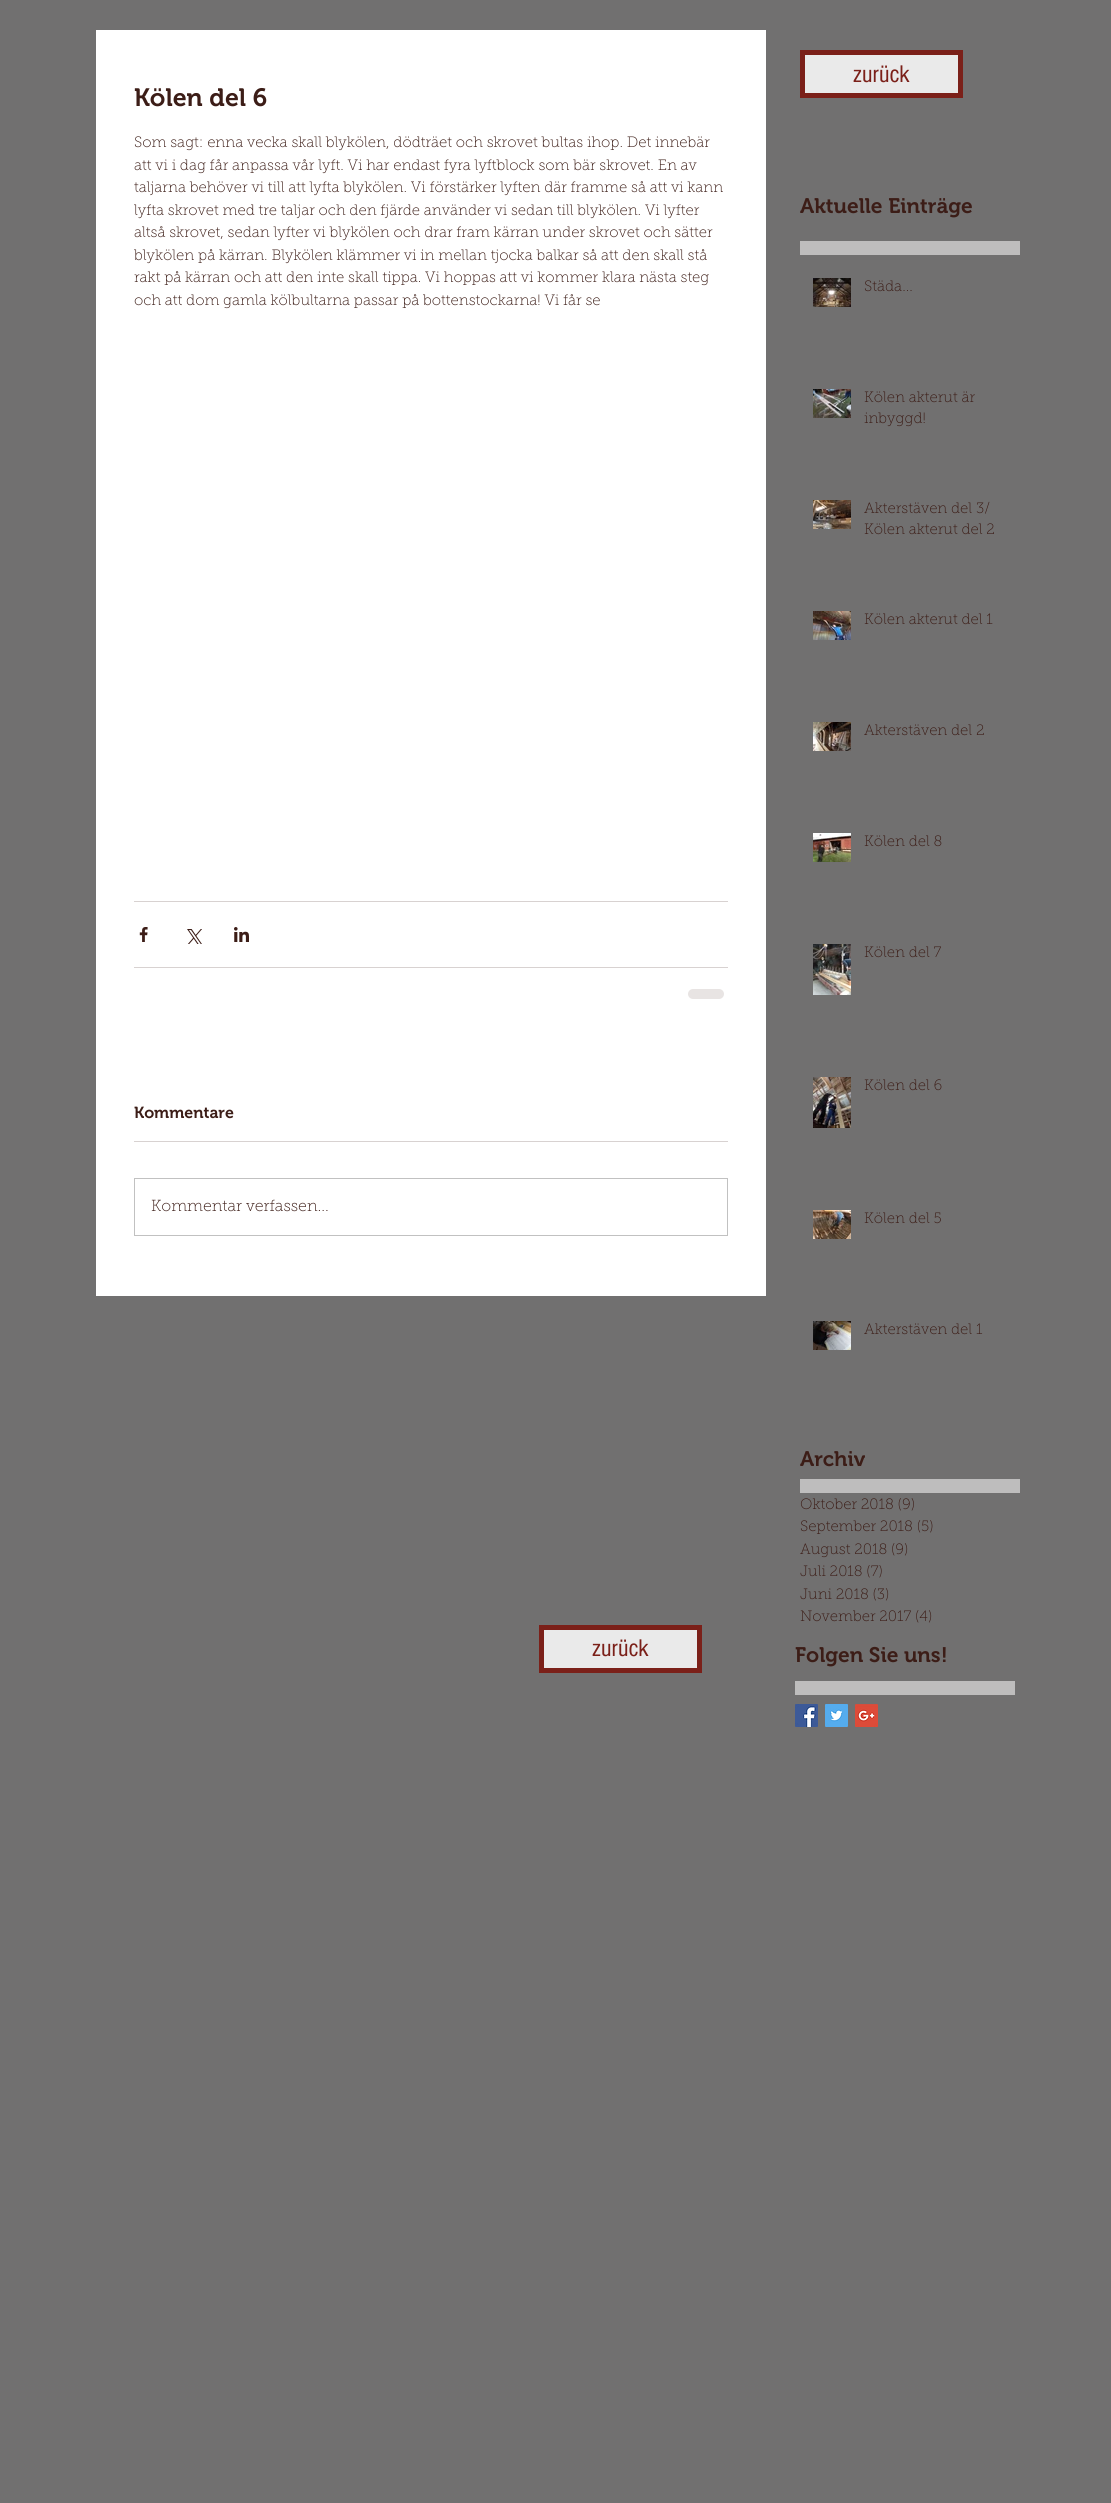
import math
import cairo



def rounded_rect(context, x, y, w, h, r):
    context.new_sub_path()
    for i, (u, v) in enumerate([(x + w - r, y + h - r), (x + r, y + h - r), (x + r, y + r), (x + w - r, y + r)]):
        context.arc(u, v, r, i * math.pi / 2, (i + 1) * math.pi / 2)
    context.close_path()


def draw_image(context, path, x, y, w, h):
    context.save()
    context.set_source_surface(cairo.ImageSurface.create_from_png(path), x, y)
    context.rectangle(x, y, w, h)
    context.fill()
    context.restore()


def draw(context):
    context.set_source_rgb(113 / 255, 112 / 255, 112 / 255)
    context.paint()
    context.set_source_rgb(234 / 255, 234 / 255, 234 / 255)
    context.rectangle(802.5, 52.5, 158, 43)
    context.fill_preserve()
    context.set_source_rgb(123 / 255, 32 / 255, 25 / 255)
    context.set_line_width(5)
    context.stroke()
    context.set_source_rgb(1, 1, 1)
    context.rectangle(96, 30, 670, 1266)
    context.fill()
    context.set_source_rgb(216 / 255, 210 / 255, 209 / 255)
    context.rectangle(134, 901, 594, 1)
    context.fill()
    draw_image(context, "images/1.png", 139, 927, 9, 15)
    draw_image(context, "images/2.png", 187, 929, 15, 15)
    draw_image(context, "images/3.png", 234, 927, 15, 15)
    context.rectangle(134, 967, 594, 1)
    context.fill()
    context.set_source_rgb(232 / 255, 228 / 255, 227 / 255)
    rounded_rect(context, 688, 989, 36, 10, 5)
    context.fill()
    context.set_source_rgb(216 / 255, 210 / 255, 209 / 255)
    context.rectangle(134, 1141, 594, 1)
    context.fill()
    context.rectangle(134.5, 1178.5, 593, 57)
    context.set_source_rgb(193 / 255, 193 / 255, 193 / 255)
    context.set_line_width(1)
    context.stroke()
    context.set_source_rgb(190 / 255, 189 / 255, 189 / 255)
    context.rectangle(800, 241, 220, 14)
    context.fill()
    draw_image(context, "images/4.png", 813, 278, 38, 29)
    draw_image(context, "images/5.png", 813, 389, 38, 29)
    draw_image(context, "images/6.png", 813, 500, 38, 29)
    draw_image(context, "images/7.png", 813, 611, 38, 29)
    draw_image(context, "images/8.png", 813, 722, 38, 29)
    draw_image(context, "images/9.png", 813, 833, 38, 29)
    draw_image(context, "images/10.png", 813, 944, 38, 51)
    draw_image(context, "images/11.png", 813, 1077, 38, 51)
    draw_image(context, "images/12.png", 813, 1210, 38, 29)
    draw_image(context, "images/13.png", 813, 1321, 38, 29)
    context.rectangle(800, 1479, 220, 14)
    context.fill()
    context.set_source_rgb(234 / 255, 234 / 255, 234 / 255)
    context.rectangle(541.5, 1627.5, 158, 43)
    context.fill_preserve()
    context.set_source_rgb(123 / 255, 32 / 255, 25 / 255)
    context.set_line_width(5)
    context.stroke()
    context.set_source_rgb(190 / 255, 189 / 255, 189 / 255)
    context.rectangle(795, 1681, 220, 14)
    context.fill()
    draw_image(context, "images/14.png", 795, 1704, 23, 23)
    draw_image(context, "images/15.png", 825, 1704, 23, 23)
    draw_image(context, "images/16.png", 855, 1704, 23, 23)
    context.select_font_face("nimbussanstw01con")
    context.set_font_size(25)
    context.set_source_rgb(123 / 255, 32 / 255, 25 / 255)
    context.move_to(853, 82)
    context.show_text("zurück")
    context.select_font_face("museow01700 SemiBold")
    context.set_source_rgb(60 / 255, 29 / 255, 23 / 255)
    context.move_to(134, 106)
    context.show_text("Kölen del 6")
    context.select_font_face("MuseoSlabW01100 Thin")
    context.set_font_size(15)
    context.move_to(134, 147)
    context.show_text("Som sagt: enna vecka skall blykölen, dödträet och skrovet bultas ihop. Det innebär")
    context.move_to(134, 170)
    context.show_text("att vi i dag får anpassa vår lyft. Vi har endast fyra lyftblock som bär skrovet. En av")
    context.move_to(134, 192)
    context.show_text("taljarna behöver vi till att lyfta blykölen. Vi förstärker lyften där framme så att vi kann")
    context.move_to(134, 215)
    context.show_text("lyfta skrovet med tre taljar och den fjärde använder vi sedan till blykölen. Vi lyfter")
    context.move_to(134, 237)
    context.show_text("altså skrovet, sedan lyfter vi blykölen och drar fram kärran under skrovet och sätter")
    context.move_to(134, 260)
    context.show_text("blykölen på kärran. Blykölen klämmer vi in mellan tjocka balkar så att den skall stå")
    context.move_to(134, 282)
    context.show_text("rakt på kärran och att den inte skall tippa. Vi hoppas att vi kommer klara nästa steg")
    context.move_to(134, 305)
    context.show_text("och att dom gamla kölbultarna passar på bottenstockarna! Vi får se")
    context.select_font_face("museow01700 SemiBold")
    context.set_font_size(16)
    context.move_to(134, 1118)
    context.show_text("Kommentare")
    context.select_font_face("MuseoSlabW01100 Thin")
    context.move_to(151, 1211)
    context.show_text("Kommentar verfassen...")
    context.select_font_face("museow01700 SemiBold")
    context.set_font_size(21)
    context.move_to(800, 213)
    context.show_text("Aktuelle Einträge")
    context.select_font_face("MuseoSlabW01100 Thin")
    context.set_font_size(15)
    context.move_to(864, 291)
    context.show_text("Städa...")
    context.move_to(864, 402)
    context.show_text("Kölen akterut är")
    context.move_to(864, 423)
    context.show_text("inbyggd!")
    context.move_to(864, 513)
    context.show_text("Akterstäven del 3/")
    context.move_to(864, 534)
    context.show_text("Kölen akterut del 2")
    context.move_to(864, 624)
    context.show_text("Kölen akterut del 1")
    context.move_to(864, 735)
    context.show_text("Akterstäven del 2")
    context.move_to(864, 846)
    context.show_text("Kölen del 8")
    context.move_to(864, 957)
    context.show_text("Kölen del 7")
    context.move_to(864, 1090)
    context.show_text("Kölen del 6")
    context.move_to(864, 1223)
    context.show_text("Kölen del 5")
    context.move_to(864, 1334)
    context.show_text("Akterstäven del 1")
    context.select_font_face("museow01700 SemiBold")
    context.set_font_size(21)
    context.move_to(800, 1466)
    context.show_text("Archiv")
    context.select_font_face("MuseoSlabW01100 Thin")
    context.set_font_size(15)
    context.move_to(800, 1509)
    context.show_text("Oktober 2018 (9)")
    context.move_to(800, 1531)
    context.show_text("September 2018 (5)")
    context.move_to(800, 1554)
    context.show_text("August 2018 (9)")
    context.move_to(800, 1576)
    context.show_text("Juli 2018 (7)")
    context.move_to(800, 1599)
    context.show_text("Juni 2018 (3)")
    context.move_to(800, 1621)
    context.show_text("November 2017 (4)")
    context.select_font_face("nimbussanstw01con")
    context.set_font_size(25)
    context.set_source_rgb(123 / 255, 32 / 255, 25 / 255)
    context.move_to(592, 1656)
    context.show_text("zurück")
    context.select_font_face("museow01700 SemiBold")
    context.set_font_size(21)
    context.set_source_rgb(60 / 255, 29 / 255, 23 / 255)
    context.move_to(795, 1662)
    context.show_text("Folgen Sie uns!")


surface = cairo.ImageSurface(cairo.Format.RGB24, 1111, 2503)
context = cairo.Context(surface)
options = cairo.FontOptions()
options.set_hint_metrics(cairo.HintMetrics.OFF)
options.set_hint_style(cairo.HintStyle.NONE)
context.set_font_options(options)
context.set_miter_limit(4)
draw(context)
surface.write_to_png("out.png")
